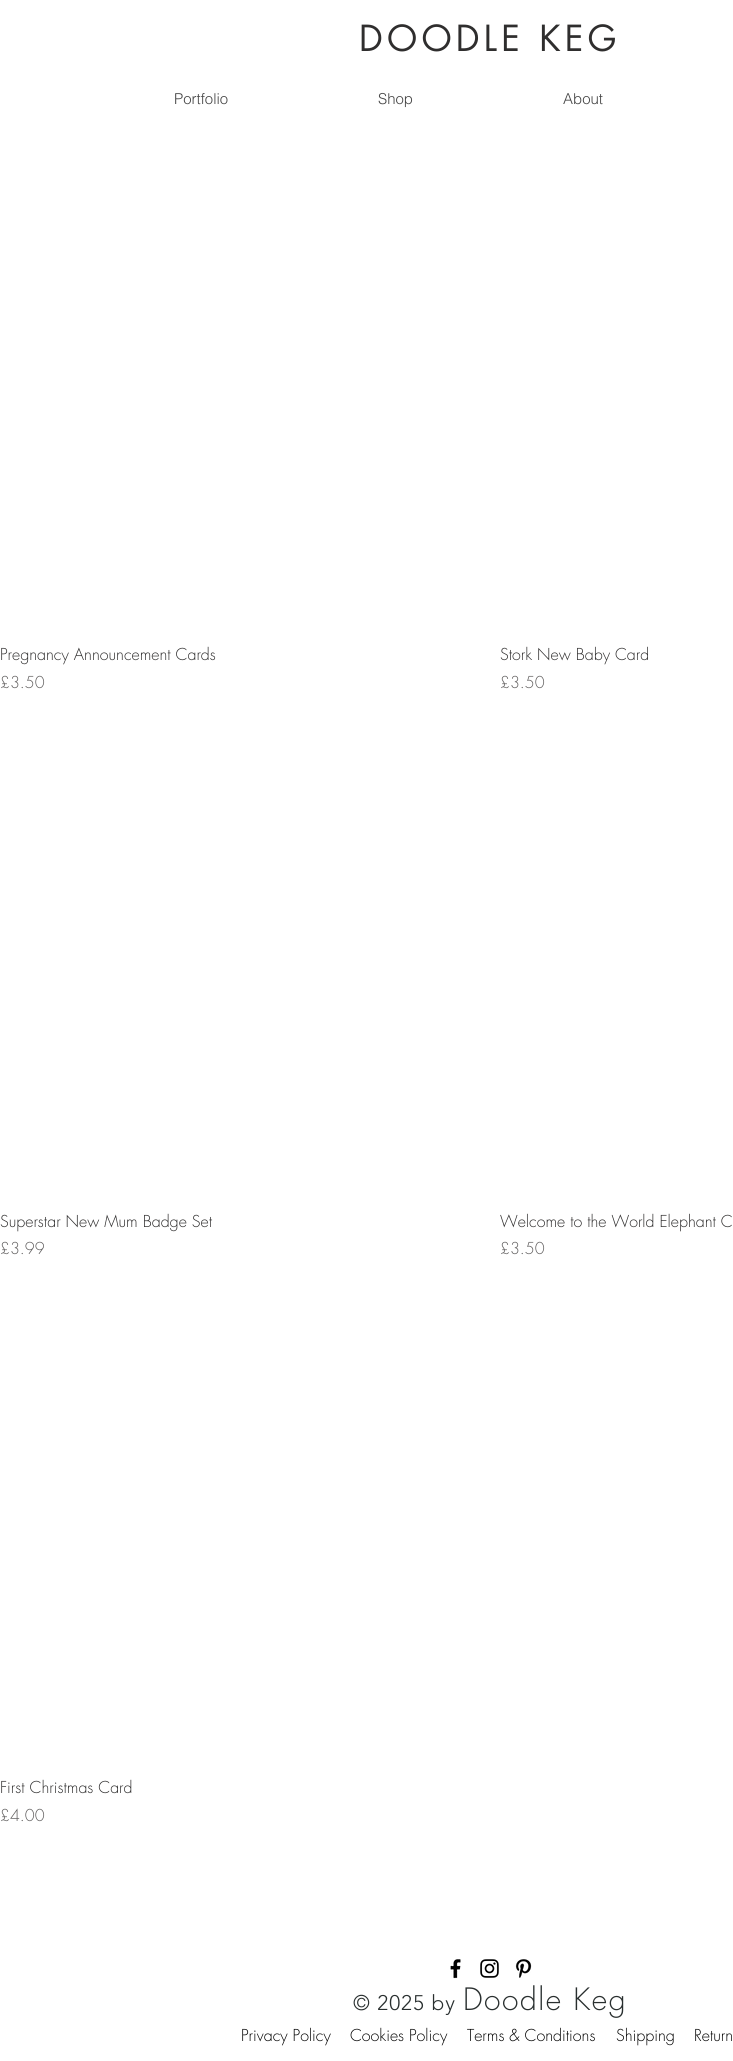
import math
import cairo



def draw_spaced(context, x, y, s, letter, word):
    context.move_to(x, y)
    for ch in s:
        context.show_text(ch)
        context.rel_move_to(letter + word * (ch == ' '), 0)


def draw_image(context, path, x, y, w, h):
    context.save()
    context.set_source_surface(cairo.ImageSurface.create_from_png(path), x, y)
    context.rectangle(x, y, w, h)
    context.fill()
    context.restore()


def draw(context):
    context.set_source_rgb(1, 1, 1)
    context.paint()
    draw_image(context, "images/1.png", 450, 1959, 11, 20)
    draw_image(context, "images/2.png", 480, 1959, 19, 19)
    draw_image(context, "images/3.png", 515, 1959, 17, 19)
    context.select_font_face("futura")
    context.set_font_size(35)
    context.set_source_rgb(47 / 255, 46 / 255, 46 / 255)
    draw_spaced(context, 359, 51, "DOODLE KEG", 4.25, 0)
    context.select_font_face("helvetica Light")
    context.set_font_size(15)
    context.set_source_rgb(68 / 255, 68 / 255, 68 / 255)
    context.move_to(174, 104)
    context.show_text("Portfolio")
    context.move_to(378, 104)
    context.show_text("Shop")
    context.move_to(563, 104)
    context.show_text("About")
    context.select_font_face("futura Light")
    context.set_font_size(16)
    context.set_source_rgb(47 / 255, 46 / 255, 46 / 255)
    context.move_to(0, 660)
    context.show_text("Pregnancy Announcement Cards")
    context.set_source_rgb(96 / 255, 94 / 255, 94 / 255)
    context.move_to(0, 688)
    context.show_text("£3.50")
    context.set_source_rgb(47 / 255, 46 / 255, 46 / 255)
    context.move_to(500, 660)
    context.show_text("Stork New Baby Card")
    context.set_source_rgb(96 / 255, 94 / 255, 94 / 255)
    context.move_to(500, 688)
    context.show_text("£3.50")
    context.set_source_rgb(47 / 255, 46 / 255, 46 / 255)
    context.move_to(0, 1227)
    context.show_text("Superstar New Mum Badge Set")
    context.set_source_rgb(96 / 255, 94 / 255, 94 / 255)
    context.move_to(0, 1254)
    context.show_text("£3.99")
    context.set_source_rgb(47 / 255, 46 / 255, 46 / 255)
    context.move_to(500, 1227)
    context.show_text("Welcome to the World Elephant C")
    context.set_source_rgb(96 / 255, 94 / 255, 94 / 255)
    context.move_to(500, 1254)
    context.show_text("£3.50")
    context.set_source_rgb(47 / 255, 46 / 255, 46 / 255)
    context.move_to(0, 1793)
    context.show_text("First Christmas Card")
    context.set_source_rgb(96 / 255, 94 / 255, 94 / 255)
    context.move_to(0, 1821)
    context.show_text("£4.00")
    context.select_font_face("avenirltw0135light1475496 Light")
    context.set_font_size(21)
    context.set_source_rgb(41 / 255, 47 / 255, 47 / 255)
    draw_spaced(context, 353, 2010, "© 2025 by", 1, 0)
    context.select_font_face("futura Light")
    context.set_font_size(30)
    draw_spaced(context, 463, 2010, "Doodle Keg", 1.5, 0)
    context.set_font_size(16)
    context.set_source_rgb(0, 0, 0)
    context.move_to(241, 2041)
    context.show_text("Privacy Policy")
    context.move_to(350, 2041)
    context.show_text("Cookies Policy")
    context.move_to(467, 2041)
    context.show_text("Terms & Conditions")
    context.move_to(616, 2041)
    context.show_text("Shipping")
    context.move_to(694, 2041)
    context.show_text("Return")


surface = cairo.ImageSurface(cairo.Format.RGB24, 733, 2061)
context = cairo.Context(surface)
options = cairo.FontOptions()
options.set_hint_metrics(cairo.HintMetrics.OFF)
options.set_hint_style(cairo.HintStyle.NONE)
context.set_font_options(options)
context.set_miter_limit(4)
draw(context)
surface.write_to_png("out.png")
